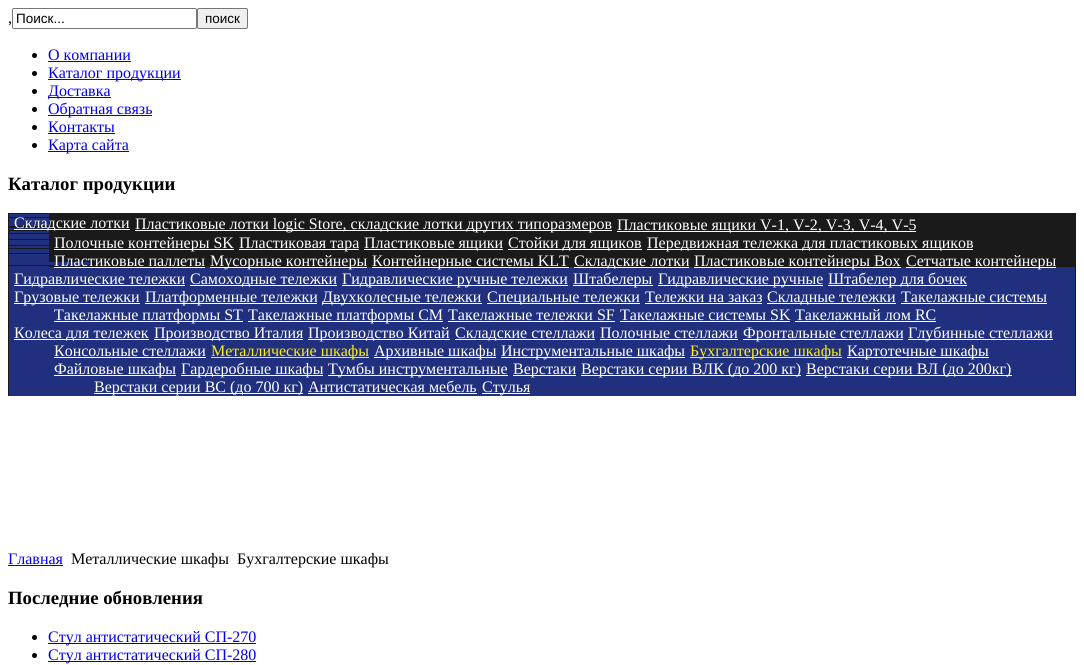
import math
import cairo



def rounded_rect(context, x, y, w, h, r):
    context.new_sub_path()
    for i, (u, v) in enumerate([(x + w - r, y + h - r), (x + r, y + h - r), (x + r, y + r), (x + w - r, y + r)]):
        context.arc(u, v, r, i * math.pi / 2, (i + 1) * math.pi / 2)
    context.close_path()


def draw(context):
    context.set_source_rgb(1, 1, 1)
    context.paint()
    rounded_rect(context, 12.5, 8.5, 184, 20, 1.5)
    context.set_source_rgb(118 / 255, 118 / 255, 118 / 255)
    context.set_line_width(1)
    context.stroke()
    context.set_source_rgb(239 / 255, 239 / 255, 239 / 255)
    rounded_rect(context, 197.5, 8.5, 50, 20, 1.5)
    context.fill_preserve()
    context.set_source_rgb(118 / 255, 118 / 255, 118 / 255)
    context.stroke()
    context.set_source_rgb(0, 0, 0)
    context.arc(34.5, 55.5, 2.5, 0, 2 * math.pi)
    context.fill()
    context.set_source_rgb(0, 0, 238 / 255)
    context.rectangle(48, 61, 83, 1)
    context.fill()
    context.set_source_rgb(0, 0, 0)
    context.arc(34.5, 73.5, 2.5, 0, 2 * math.pi)
    context.fill()
    context.set_source_rgb(0, 0, 238 / 255)
    context.rectangle(48, 79, 133, 1)
    context.fill()
    context.set_source_rgb(0, 0, 0)
    context.arc(34.5, 91.5, 2.5, 0, 2 * math.pi)
    context.fill()
    context.set_source_rgb(0, 0, 238 / 255)
    context.rectangle(48, 97, 63, 1)
    context.fill()
    context.set_source_rgb(0, 0, 0)
    context.arc(34.5, 109.5, 2.5, 0, 2 * math.pi)
    context.fill()
    context.set_source_rgb(0, 0, 238 / 255)
    context.rectangle(48, 115, 104, 1)
    context.fill()
    context.set_source_rgb(0, 0, 0)
    context.arc(34.5, 127.5, 2.5, 0, 2 * math.pi)
    context.fill()
    context.set_source_rgb(0, 0, 238 / 255)
    context.rectangle(48, 133, 67, 1)
    context.fill()
    context.set_source_rgb(0, 0, 0)
    context.arc(34.5, 145.5, 2.5, 0, 2 * math.pi)
    context.fill()
    context.set_source_rgb(0, 0, 238 / 255)
    context.rectangle(48, 151, 81, 1)
    context.fill()
    context.set_source_rgb(32 / 255, 48 / 255, 126 / 255)
    context.rectangle(9, 214, 1066, 182)
    context.fill()
    context.set_source_rgb(26 / 255, 26 / 255, 26 / 255)
    context.rectangle(1075, 213, 1, 183)
    context.fill()
    context.rectangle(8, 213, 1, 183)
    context.fill()
    context.rectangle(9, 213, 1066, 1)
    context.fill()
    context.set_source_rgb(1, 1, 1)
    context.rectangle(14, 229, 116, 1)
    context.fill()
    context.set_source_rgb(26 / 255, 26 / 255, 26 / 255)
    context.rectangle(49, 214, 1026, 3)
    context.fill()
    context.rectangle(9, 230, 1066, 1)
    context.fill()
    context.set_source_rgb(1, 1, 1)
    context.rectangle(135, 230, 477, 1)
    context.fill()
    context.set_source_rgb(26 / 255, 26 / 255, 26 / 255)
    context.rectangle(49, 231, 1026, 2)
    context.fill()
    context.set_source_rgb(1, 1, 1)
    context.rectangle(617, 231, 299, 1)
    context.fill()
    context.set_source_rgb(26 / 255, 26 / 255, 26 / 255)
    context.rectangle(49, 249, 1026, 4)
    context.fill()
    context.set_source_rgb(1, 1, 1)
    context.rectangle(54, 249, 180, 1)
    context.fill()
    context.set_source_rgb(26 / 255, 26 / 255, 26 / 255)
    context.rectangle(9, 217, 1066, 1)
    context.fill()
    context.rectangle(49, 218, 1026, 8)
    context.fill()
    context.set_source_rgb(1, 1, 1)
    context.rectangle(364, 249, 139, 1)
    context.fill()
    context.rectangle(508, 249, 134, 1)
    context.fill()
    context.rectangle(647, 249, 326, 1)
    context.fill()
    context.rectangle(54, 267, 151, 1)
    context.fill()
    context.rectangle(210, 267, 157, 1)
    context.fill()
    context.rectangle(372, 267, 197, 1)
    context.fill()
    context.rectangle(574, 267, 115, 1)
    context.fill()
    context.rectangle(694, 267, 207, 1)
    context.fill()
    context.rectangle(239, 249, 120, 1)
    context.fill()
    context.set_source_rgb(26 / 255, 26 / 255, 26 / 255)
    context.rectangle(9, 226, 1066, 2)
    context.fill()
    context.set_source_rgb(1, 1, 1)
    context.rectangle(906, 267, 150, 1)
    context.fill()
    context.rectangle(14, 285, 171, 1)
    context.fill()
    context.set_source_rgb(26 / 255, 26 / 255, 26 / 255)
    context.rectangle(49, 228, 1026, 1)
    context.fill()
    context.set_source_rgb(1, 1, 1)
    context.rectangle(190, 285, 147, 1)
    context.fill()
    context.set_source_rgb(26 / 255, 26 / 255, 26 / 255)
    context.rectangle(130, 229, 945, 1)
    context.fill()
    context.set_source_rgb(1, 1, 1)
    context.rectangle(342, 285, 226, 1)
    context.fill()
    context.rectangle(573, 285, 80, 1)
    context.fill()
    context.rectangle(658, 285, 165, 1)
    context.fill()
    context.rectangle(828, 285, 139, 1)
    context.fill()
    context.set_source_rgb(26 / 255, 26 / 255, 26 / 255)
    context.rectangle(9, 233, 1066, 1)
    context.fill()
    context.set_source_rgb(1, 1, 1)
    context.rectangle(14, 303, 126, 1)
    context.fill()
    context.set_source_rgb(26 / 255, 26 / 255, 26 / 255)
    context.rectangle(49, 234, 1026, 5)
    context.fill()
    context.set_source_rgb(1, 1, 1)
    context.rectangle(145, 303, 172, 1)
    context.fill()
    context.rectangle(322, 303, 160, 1)
    context.fill()
    context.rectangle(487, 303, 153, 1)
    context.fill()
    context.rectangle(645, 303, 117, 1)
    context.fill()
    context.rectangle(767, 303, 129, 1)
    context.fill()
    context.set_source_rgb(26 / 255, 26 / 255, 26 / 255)
    context.rectangle(9, 239, 1066, 1)
    context.fill()
    context.set_source_rgb(1, 1, 1)
    context.rectangle(901, 303, 146, 1)
    context.fill()
    context.set_source_rgb(26 / 255, 26 / 255, 26 / 255)
    context.rectangle(49, 240, 1026, 5)
    context.fill()
    context.set_source_rgb(1, 1, 1)
    context.rectangle(54, 321, 189, 1)
    context.fill()
    context.rectangle(248, 321, 195, 1)
    context.fill()
    context.rectangle(448, 321, 167, 1)
    context.fill()
    context.rectangle(620, 321, 170, 1)
    context.fill()
    context.rectangle(795, 321, 141, 1)
    context.fill()
    context.set_source_rgb(26 / 255, 26 / 255, 26 / 255)
    context.rectangle(9, 248, 1066, 1)
    context.fill()
    context.set_source_rgb(1, 1, 1)
    context.rectangle(600, 339, 138, 1)
    context.fill()
    context.rectangle(743, 339, 160, 1)
    context.fill()
    context.rectangle(908, 339, 145, 1)
    context.fill()
    context.rectangle(54, 357, 152, 1)
    context.fill()
    context.rectangle(455, 339, 140, 1)
    context.fill()
    context.set_source_rgb(26 / 255, 26 / 255, 26 / 255)
    context.rectangle(9, 245, 1066, 1)
    context.fill()
    context.set_source_rgb(1, 1, 1)
    context.rectangle(14, 339, 135, 1)
    context.fill()
    context.set_source_rgb(26 / 255, 26 / 255, 26 / 255)
    context.rectangle(49, 246, 1026, 2)
    context.fill()
    context.set_source_rgb(1, 1, 1)
    context.rectangle(154, 339, 149, 1)
    context.fill()
    context.rectangle(308, 339, 142, 1)
    context.fill()
    context.set_source_rgb(26 / 255, 26 / 255, 26 / 255)
    context.rectangle(9, 253, 1066, 1)
    context.fill()
    context.rectangle(49, 254, 1026, 8)
    context.fill()
    context.set_source_rgb(1, 1, 1)
    context.rectangle(374, 357, 122, 1)
    context.fill()
    context.rectangle(501, 357, 184, 1)
    context.fill()
    context.set_source_rgb(1, 239 / 255, 18 / 255)
    context.rectangle(690, 357, 152, 1)
    context.fill()
    context.set_source_rgb(1, 1, 1)
    context.rectangle(847, 357, 142, 1)
    context.fill()
    context.rectangle(54, 375, 122, 1)
    context.fill()
    context.set_source_rgb(26 / 255, 26 / 255, 26 / 255)
    context.rectangle(89, 262, 986, 3)
    context.fill()
    context.set_source_rgb(1, 1, 1)
    context.rectangle(581, 375, 220, 1)
    context.fill()
    context.rectangle(806, 375, 206, 1)
    context.fill()
    context.rectangle(94, 393, 209, 1)
    context.fill()
    context.rectangle(513, 375, 63, 1)
    context.fill()
    context.rectangle(181, 375, 142, 1)
    context.fill()
    context.rectangle(328, 375, 180, 1)
    context.fill()
    context.set_source_rgb(1, 239 / 255, 18 / 255)
    context.rectangle(211, 357, 158, 1)
    context.fill()
    context.set_source_rgb(26 / 255, 26 / 255, 26 / 255)
    context.rectangle(9, 265, 1066, 1)
    context.fill()
    context.set_source_rgb(1, 1, 1)
    context.rectangle(308, 393, 169, 1)
    context.fill()
    context.set_source_rgb(26 / 255, 26 / 255, 26 / 255)
    context.rectangle(49, 266, 1026, 1)
    context.fill()
    context.set_source_rgb(1, 1, 1)
    context.rectangle(482, 393, 48, 1)
    context.fill()
    context.set_source_rgb(0, 0, 238 / 255)
    context.rectangle(8, 565, 55, 1)
    context.fill()
    context.set_source_rgb(0, 0, 0)
    context.arc(34.5, 637.5, 2.5, 0, 2 * math.pi)
    context.fill()
    context.set_source_rgb(0, 0, 238 / 255)
    context.rectangle(48, 643, 208, 1)
    context.fill()
    context.set_source_rgb(0, 0, 0)
    context.arc(34.5, 655.5, 2.5, 0, 2 * math.pi)
    context.fill()
    context.set_source_rgb(0, 0, 238 / 255)
    context.rectangle(48, 661, 208, 1)
    context.fill()
    context.select_font_face("Liberation Serif")
    context.set_font_size(16)
    context.set_source_rgb(0, 0, 0)
    context.move_to(8, 23)
    context.show_text(",")
    context.select_font_face("Liberation Sans")
    context.set_font_size(13.5)
    context.move_to(16, 23)
    context.show_text("Поиск...")
    context.move_to(205, 23)
    context.show_text("поиск")
    context.select_font_face("Liberation Serif")
    context.set_font_size(16)
    context.set_source_rgb(0, 0, 238 / 255)
    context.move_to(48, 60)
    context.show_text("О компании")
    context.move_to(48, 78)
    context.show_text("Каталог продукции")
    context.move_to(48, 96)
    context.show_text("Доставка")
    context.move_to(48, 114)
    context.show_text("Обратная связь")
    context.move_to(48, 132)
    context.show_text("Контакты")
    context.move_to(48, 150)
    context.show_text("Карта сайта")
    context.select_font_face("Liberation Serif", cairo.FontSlant.NORMAL, cairo.FontWeight.BOLD)
    context.set_font_size(18.75)
    context.set_source_rgb(0, 0, 0)
    context.move_to(8, 190)
    context.show_text("Каталог продукции")
    context.select_font_face("Liberation Serif")
    context.set_font_size(16)
    context.set_source_rgb(1, 1, 1)
    context.move_to(14, 228)
    context.show_text("Складские лотки")
    context.move_to(135, 229)
    context.show_text("Пластиковые лотки logic Store, складские лотки других типоразмеров")
    context.move_to(617, 230)
    context.show_text("Пластиковые ящики V-1, V-2, V-3, V-4, V-5")
    context.move_to(54, 248)
    context.show_text("Полочные контейнеры SK")
    context.move_to(364, 248)
    context.show_text("Пластиковые ящики")
    context.move_to(508, 248)
    context.show_text("Стойки для ящиков")
    context.move_to(647, 248)
    context.show_text("Передвижная тележка для пластиковых ящиков")
    context.move_to(54, 266)
    context.show_text("Пластиковые паллеты")
    context.move_to(210, 266)
    context.show_text("Мусорные контейнеры")
    context.move_to(372, 266)
    context.show_text("Контейнерные системы KLT")
    context.move_to(574, 266)
    context.show_text("Складские лотки")
    context.move_to(694, 266)
    context.show_text("Пластиковые контейнеры Box")
    context.move_to(239, 248)
    context.show_text("Пластиковая тара")
    context.move_to(906, 266)
    context.show_text("Сетчатые контейнеры")
    context.move_to(14, 284)
    context.show_text("Гидравлические тележки")
    context.move_to(190, 284)
    context.show_text("Самоходные тележки")
    context.move_to(342, 284)
    context.show_text("Гидравлические ручные тележки")
    context.move_to(573, 284)
    context.show_text("Штабелеры")
    context.move_to(658, 284)
    context.show_text("Гидравлические ручные")
    context.move_to(828, 284)
    context.show_text("Штабелер для бочек")
    context.move_to(14, 302)
    context.show_text("Грузовые тележки")
    context.move_to(145, 302)
    context.show_text("Платформенные тележки")
    context.move_to(322, 302)
    context.show_text("Двухколесные тележки")
    context.move_to(487, 302)
    context.show_text("Специальные тележки")
    context.move_to(645, 302)
    context.show_text("Тележки на заказ")
    context.move_to(767, 302)
    context.show_text("Складные тележки")
    context.move_to(901, 302)
    context.show_text("Такелажные системы")
    context.move_to(54, 320)
    context.show_text("Такелажные платформы ST")
    context.move_to(248, 320)
    context.show_text("Такелажные платформы СМ")
    context.move_to(448, 320)
    context.show_text("Такелажные тележки SF")
    context.move_to(620, 320)
    context.show_text("Такелажные системы SK")
    context.move_to(795, 320)
    context.show_text("Такелажный лом RC")
    context.move_to(600, 338)
    context.show_text("Полочные стеллажи")
    context.move_to(743, 338)
    context.show_text("Фронтальные стеллажи")
    context.move_to(908, 338)
    context.show_text("Глубинные стеллажи")
    context.move_to(54, 356)
    context.show_text("Консольные стеллажи")
    context.move_to(455, 338)
    context.show_text("Складские стеллажи")
    context.move_to(14, 338)
    context.show_text("Колеса для тележек")
    context.move_to(154, 338)
    context.show_text("Производство Италия")
    context.move_to(308, 338)
    context.show_text("Производство Китай")
    context.move_to(374, 356)
    context.show_text("Архивные шкафы")
    context.move_to(501, 356)
    context.show_text("Инструментальные шкафы")
    context.set_source_rgb(1, 239 / 255, 18 / 255)
    context.move_to(690, 356)
    context.show_text("Бухгалтерские шкафы")
    context.set_source_rgb(1, 1, 1)
    context.move_to(847, 356)
    context.show_text("Картотечные шкафы")
    context.move_to(54, 374)
    context.show_text("Файловые шкафы")
    context.move_to(581, 374)
    context.show_text("Верстаки серии ВЛК (до 200 кг)")
    context.move_to(806, 374)
    context.show_text("Верстаки серии ВЛ (до 200кг)")
    context.move_to(94, 392)
    context.show_text("Верстаки серии ВС (до 700 кг)")
    context.move_to(513, 374)
    context.show_text("Верстаки")
    context.move_to(181, 374)
    context.show_text("Гардеробные шкафы")
    context.move_to(328, 374)
    context.show_text("Тумбы инструментальные")
    context.set_source_rgb(1, 239 / 255, 18 / 255)
    context.move_to(211, 356)
    context.show_text("Металлические шкафы")
    context.set_source_rgb(1, 1, 1)
    context.move_to(308, 392)
    context.show_text("Антистатическая мебель")
    context.move_to(482, 392)
    context.show_text("Стулья")
    context.set_source_rgb(0, 0, 238 / 255)
    context.move_to(8, 564)
    context.show_text("Главная")
    context.set_source_rgb(0, 0, 0)
    context.move_to(71, 564)
    context.show_text("Металлические шкафы")
    context.move_to(237, 564)
    context.show_text("Бухгалтерские шкафы")
    context.select_font_face("Liberation Serif", cairo.FontSlant.NORMAL, cairo.FontWeight.BOLD)
    context.set_font_size(18.75)
    context.move_to(8, 604)
    context.show_text("Последние обновления")
    context.select_font_face("Liberation Serif")
    context.set_font_size(16)
    context.set_source_rgb(0, 0, 238 / 255)
    context.move_to(48, 642)
    context.show_text("Стул антистатический СП-270")
    context.move_to(48, 660)
    context.show_text("Стул антистатический СП-280")


surface = cairo.ImageSurface(cairo.Format.RGB24, 1084, 665)
context = cairo.Context(surface)
options = cairo.FontOptions()
options.set_hint_metrics(cairo.HintMetrics.OFF)
options.set_hint_style(cairo.HintStyle.NONE)
context.set_font_options(options)
context.set_miter_limit(4)
draw(context)
surface.write_to_png("out.png")
